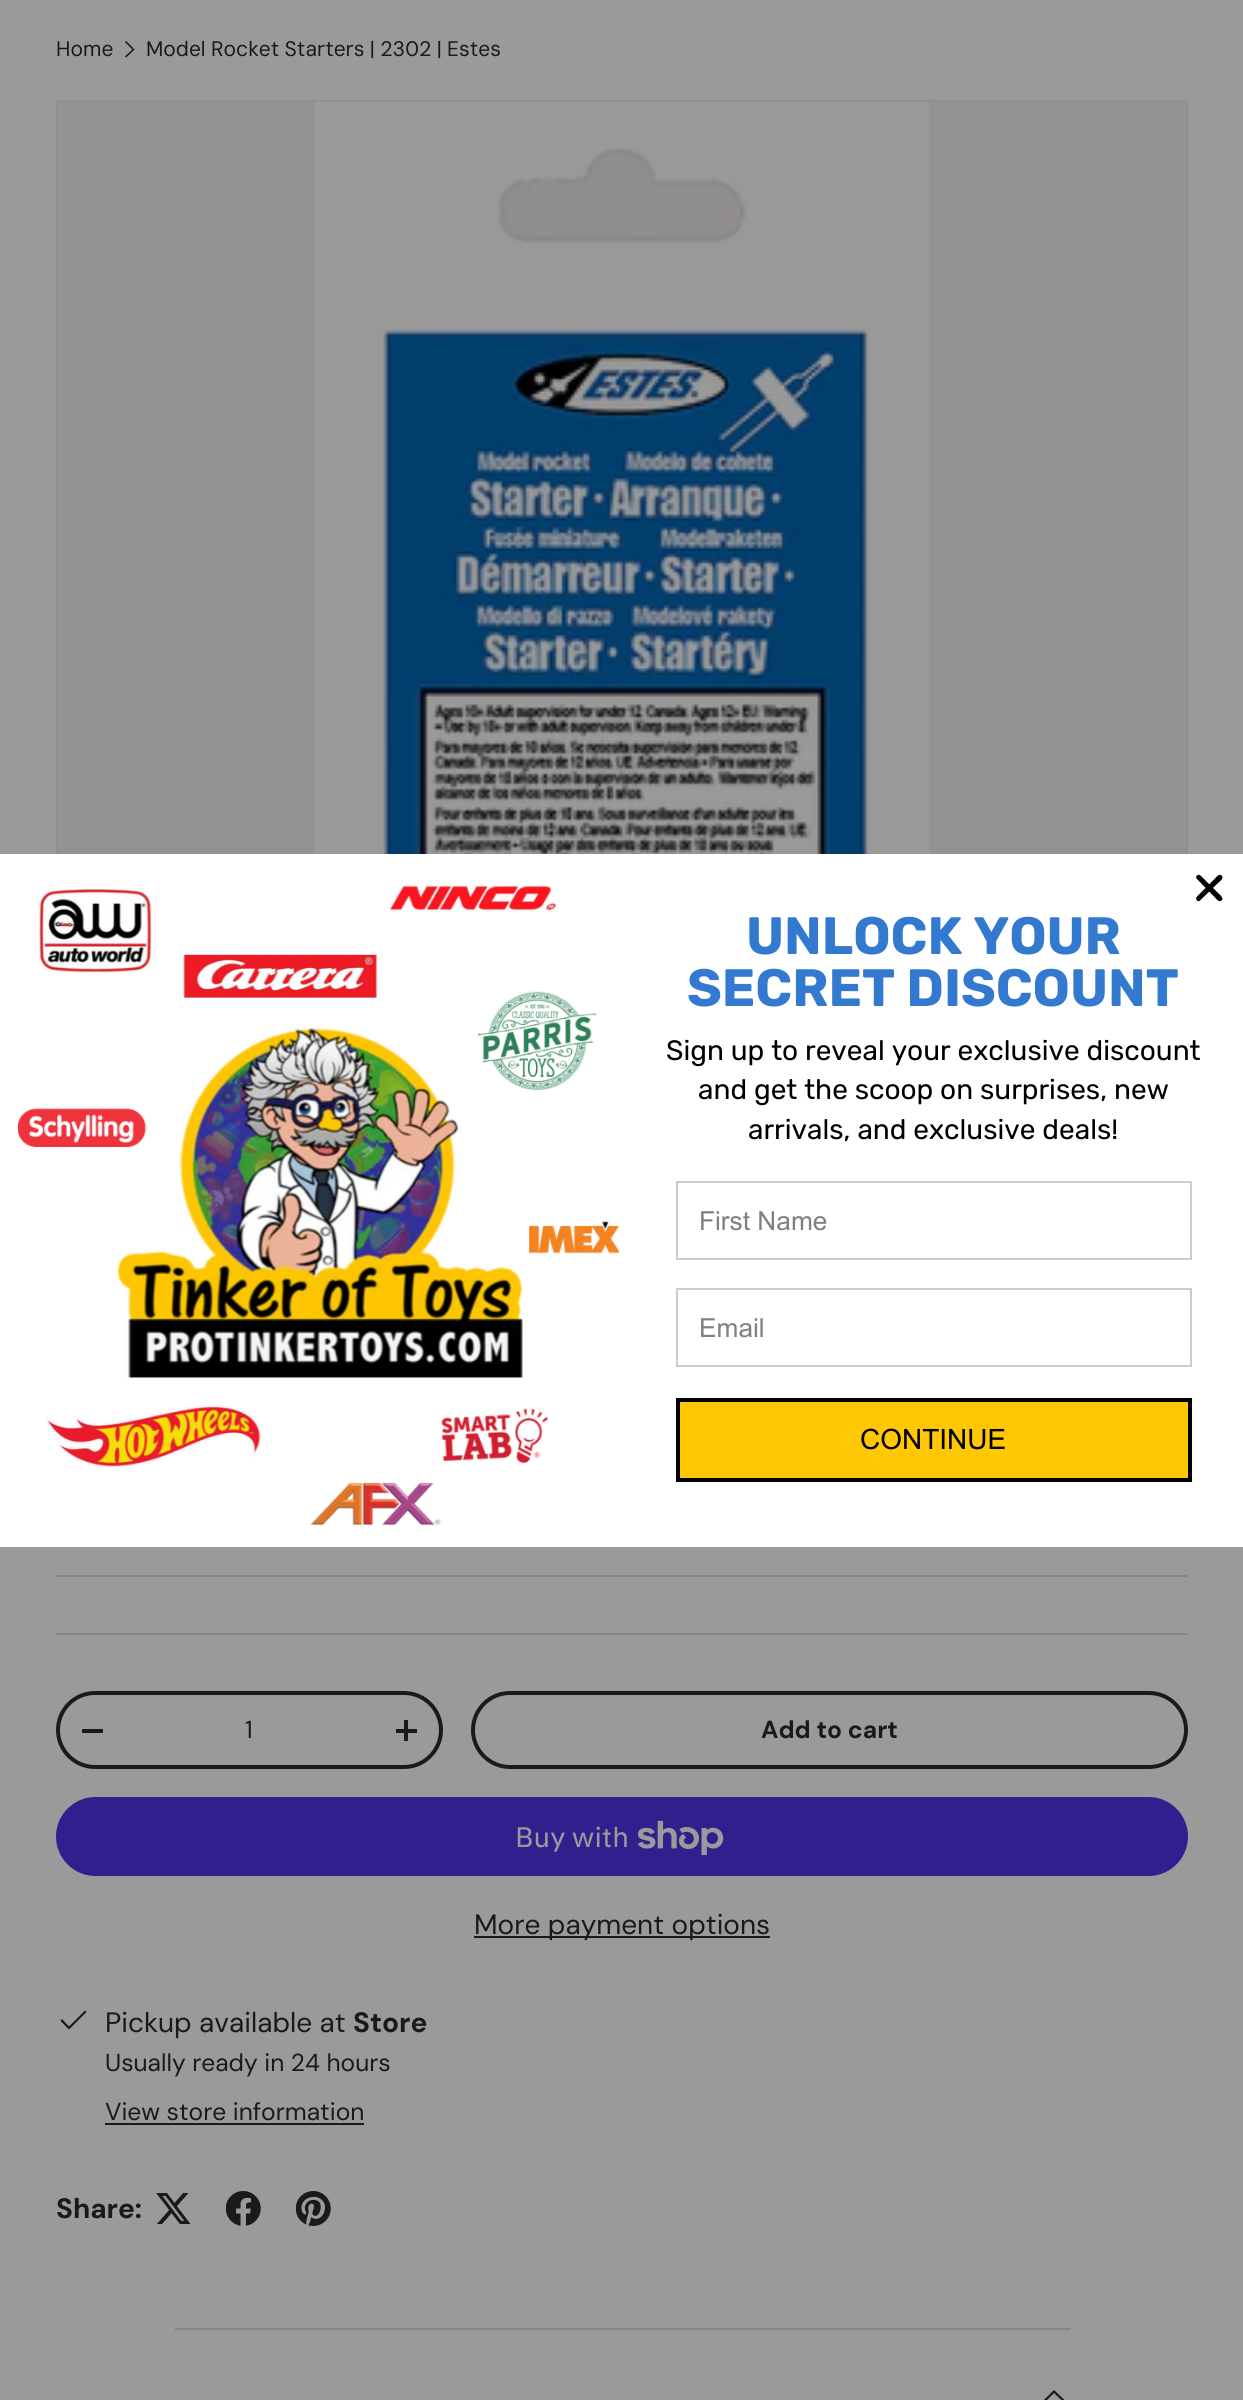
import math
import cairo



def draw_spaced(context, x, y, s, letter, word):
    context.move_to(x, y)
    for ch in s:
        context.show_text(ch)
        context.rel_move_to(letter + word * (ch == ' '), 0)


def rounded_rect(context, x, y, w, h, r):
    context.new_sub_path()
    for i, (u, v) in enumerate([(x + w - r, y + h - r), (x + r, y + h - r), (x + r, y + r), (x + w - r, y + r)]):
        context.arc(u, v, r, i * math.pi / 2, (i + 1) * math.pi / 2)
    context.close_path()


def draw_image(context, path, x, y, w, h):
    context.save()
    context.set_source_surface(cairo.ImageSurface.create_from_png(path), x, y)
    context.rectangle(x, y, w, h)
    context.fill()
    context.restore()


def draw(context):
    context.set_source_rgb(154 / 255, 154 / 255, 154 / 255)
    context.paint()
    context.new_path()
    context.move_to(125.5, 41.5)
    context.line_to(133.5, 49.5)
    context.line_to(125.5, 57)
    context.set_source_rgb(25 / 255, 26 / 255, 25 / 255)
    context.set_line_width(1.6)
    context.stroke()
    context.set_source_rgb(147 / 255, 147 / 255, 147 / 255)
    context.rectangle(58, 102, 1128, 752)
    context.fill()
    context.rectangle(57, 101, 1130, 1130)
    context.set_source_rgb(143 / 255, 143 / 255, 143 / 255)
    context.set_line_width(2)
    context.stroke()
    draw_image(context, "images/1.png", 315, 101, 614, 753)
    context.set_source_rgb(134 / 255, 134 / 255, 134 / 255)
    context.rectangle(56, 1575, 1132, 2)
    context.fill()
    context.rectangle(56, 1633, 1132, 2)
    context.fill()
    rounded_rect(context, 58, 1693, 383, 74, 37)
    context.set_source_rgb(25 / 255, 26 / 255, 25 / 255)
    context.set_line_width(4)
    context.stroke()
    context.rectangle(82, 1729, 21, 4)
    context.fill()
    context.rectangle(396, 1729, 21, 4)
    context.fill()
    context.rectangle(404, 1720, 4, 21)
    context.fill()
    rounded_rect(context, 473, 1693, 713, 74, 37)
    context.stroke()
    context.set_source_rgb(50 / 255, 31 / 255, 141 / 255)
    rounded_rect(context, 56, 1797, 1132, 79, 39.5)
    context.fill()
    draw_image(context, "images/2.png", 638, 1820, 86, 35)
    context.set_source_rgb(25 / 255, 26 / 255, 25 / 255)
    context.rectangle(474, 1936, 296, 2)
    context.fill()
    context.new_path()
    context.move_to(85, 2010.5)
    context.line_to(86.5, 2012)
    context.line_to(69, 2029.5)
    context.line_to(60.5, 2021)
    context.line_to(62, 2019)
    context.line_to(69, 2026.5)
    context.close_path()
    context.fill()
    context.rectangle(105, 2123, 259, 2)
    context.fill()
    draw_image(context, "images/3.png", 156, 2193, 35, 31)
    draw_image(context, "images/4.png", 226, 2191, 35, 35)
    draw_image(context, "images/5.png", 296, 2191, 35, 35)
    context.set_source_rgb(134 / 255, 134 / 255, 134 / 255)
    context.rectangle(175, 2328, 896, 2)
    context.fill()
    context.new_path()
    context.move_to(1065, 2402)
    context.line_to(1054, 2391.5)
    context.line_to(1043.5, 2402)
    context.set_source_rgb(25 / 255, 26 / 255, 25 / 255)
    context.set_line_width(2.2)
    context.stroke()
    context.set_source_rgb(1, 1, 1)
    context.rectangle(0, 854, 1243, 693)
    context.fill()
    context.set_source_rgb(0, 0, 0)
    context.new_path()
    context.move_to(1200.5, 875.5)
    context.line_to(1218, 893)
    context.curve_to(1219.5, 894.5, 1224.5, 898, 1221.5, 900.5)
    context.curve_to(1219, 903, 1215.5, 898, 1214.5, 897)
    context.line_to(1196.5, 878.5)
    context.curve_to(1195, 876, 1198.5, 873.5, 1200.5, 875.5)
    context.close_path()
    context.fill()
    context.new_path()
    context.move_to(1197, 896.5)
    context.line_to(1214.5, 879)
    context.curve_to(1215.5, 878, 1219, 873, 1221.5, 875.5)
    context.curve_to(1224.5, 878.5, 1219.5, 881.5, 1218, 883)
    context.line_to(1199.5, 901)
    context.curve_to(1197, 902, 1195, 898.5, 1197, 896.5)
    context.close_path()
    context.fill()
    draw_image(context, "images/6.png", 18, 885, 602, 641)
    context.rectangle(677, 1182, 514, 77)
    context.set_source_rgb(204 / 255, 204 / 255, 204 / 255)
    context.set_line_width(2)
    context.stroke()
    context.rectangle(677, 1289, 514, 77)
    context.stroke()
    context.set_source_rgb(1, 200 / 255, 2 / 255)
    context.rectangle(678, 1400, 512, 80)
    context.fill_preserve()
    context.set_source_rgb(0, 0, 0)
    context.set_line_width(4)
    context.stroke()
    context.select_font_face("DM Sans")
    context.set_font_size(21)
    context.set_source_rgb(25 / 255, 26 / 255, 25 / 255)
    context.move_to(56, 56)
    context.show_text("Home")
    draw_spaced(context, 146, 56, "Model Rocket Starters | 2302 | Estes", 0, -0.25)
    context.select_font_face("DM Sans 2")
    context.set_font_size(24.6)
    context.move_to(245, 1738)
    context.show_text("1")
    context.select_font_face("DM Sans 2", cairo.FontSlant.NORMAL, cairo.FontWeight.BOLD)
    context.move_to(761, 1738)
    context.show_text("Add to cart")
    context.select_font_face("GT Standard")
    context.set_font_size(28)
    context.set_source_rgb(154 / 255, 154 / 255, 154 / 255)
    context.move_to(515, 1847)
    context.show_text("Buy with")
    context.select_font_face("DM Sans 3")
    context.set_source_rgb(25 / 255, 26 / 255, 25 / 255)
    context.move_to(474, 1934)
    context.show_text("More payment options")
    context.move_to(105, 2032)
    context.show_text("Pickup available at")
    context.select_font_face("DM Sans", cairo.FontSlant.NORMAL, cairo.FontWeight.BOLD)
    context.move_to(353, 2032)
    context.show_text("Store")
    context.select_font_face("DM Sans 2")
    context.set_font_size(24.6)
    context.move_to(105, 2071)
    context.show_text("Usually ready in 24 hours")
    context.move_to(105, 2120)
    context.show_text("View store information")
    context.select_font_face("DM Sans", cairo.FontSlant.NORMAL, cairo.FontWeight.BOLD)
    context.set_font_size(28)
    context.move_to(56, 2218)
    context.show_text("Share:")
    context.select_font_face("Rubik", cairo.FontSlant.NORMAL, cairo.FontWeight.BOLD)
    context.set_font_size(52.5)
    context.set_source_rgb(51 / 255, 121 / 255, 207 / 255)
    context.move_to(746, 954)
    context.show_text("UNLOCK YOUR")
    context.move_to(687, 1006)
    context.show_text("SECRET DISCOUNT")
    context.select_font_face("Rubik")
    context.set_font_size(28)
    context.set_source_rgb(0, 0, 0)
    context.move_to(666, 1060)
    context.show_text("Sign up to reveal your exclusive discount")
    context.move_to(698, 1099)
    context.show_text("and get the scoop on surprises, new")
    context.move_to(748, 1139)
    context.show_text("arrivals, and exclusive deals!")
    context.select_font_face("Arial")
    context.set_font_size(26.25)
    context.set_source_rgb(128 / 255, 128 / 255, 128 / 255)
    context.move_to(699, 1230)
    context.show_text("First Name")
    context.move_to(699, 1337)
    context.show_text("Email")
    context.set_font_size(28)
    context.set_source_rgb(0, 0, 0)
    context.move_to(860, 1449)
    context.show_text("CONTINUE")


surface = cairo.ImageSurface(cairo.Format.RGB24, 1243, 2400)
context = cairo.Context(surface)
options = cairo.FontOptions()
options.set_hint_metrics(cairo.HintMetrics.OFF)
options.set_hint_style(cairo.HintStyle.NONE)
context.set_font_options(options)
context.set_miter_limit(4)
draw(context)
surface.write_to_png("out.png")
